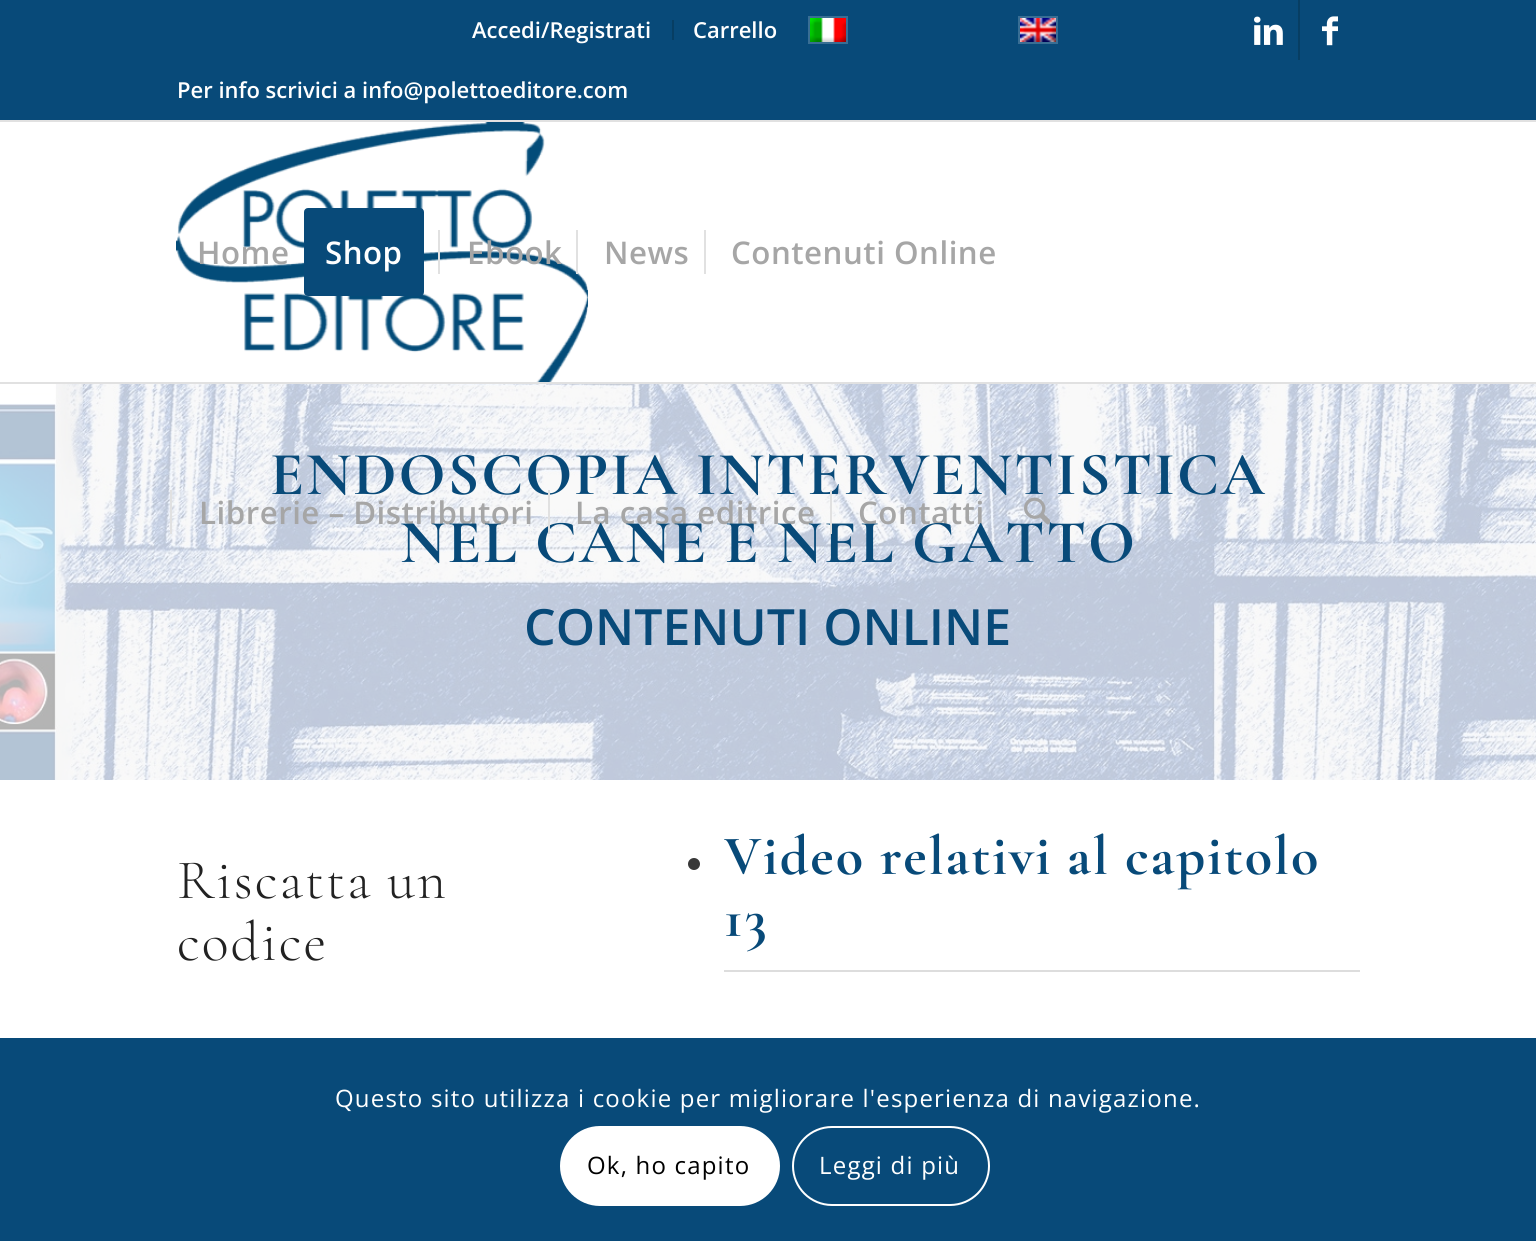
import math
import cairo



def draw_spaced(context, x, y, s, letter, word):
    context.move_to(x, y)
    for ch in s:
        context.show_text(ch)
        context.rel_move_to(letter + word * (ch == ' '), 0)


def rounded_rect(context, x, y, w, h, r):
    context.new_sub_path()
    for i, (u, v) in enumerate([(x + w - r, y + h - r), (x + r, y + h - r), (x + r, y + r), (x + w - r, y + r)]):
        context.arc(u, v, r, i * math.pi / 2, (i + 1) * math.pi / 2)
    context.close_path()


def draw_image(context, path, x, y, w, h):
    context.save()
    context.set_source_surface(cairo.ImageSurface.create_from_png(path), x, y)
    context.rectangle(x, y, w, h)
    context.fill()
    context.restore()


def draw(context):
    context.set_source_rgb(1, 1, 1)
    context.paint()
    context.set_source_rgb(8 / 255, 74 / 255, 121 / 255)
    context.rectangle(0, 0, 1536, 120)
    context.fill()
    context.set_source_rgb(225 / 255, 225 / 255, 225 / 255)
    context.rectangle(0, 120, 1536, 2)
    context.fill()
    context.set_source_rgb(7 / 255, 62 / 255, 99 / 255)
    context.rectangle(672, 20, 2, 20)
    context.fill()
    context.rectangle(809, 17, 38, 26)
    context.set_source_rgb(57 / 255, 110 / 255, 148 / 255)
    context.stroke()
    draw_image(context, "images/1.png", 810, 18, 36, 24)
    context.rectangle(1019, 17, 38, 26)
    context.stroke()
    draw_image(context, "images/2.png", 1020, 18, 36, 24)
    context.set_source_rgb(7 / 255, 62 / 255, 99 / 255)
    context.rectangle(1298, 0, 2, 60)
    context.fill()
    draw_image(context, "images/3.png", 1254, 16, 29, 29)
    draw_image(context, "images/4.png", 1322, 16, 16, 30)
    context.set_source_rgb(225 / 255, 225 / 255, 225 / 255)
    context.rectangle(0, 382, 1536, 2)
    context.fill()
    draw_image(context, "images/5.png", 176, 122, 412, 260)
    context.set_source_rgb(8 / 255, 74 / 255, 121 / 255)
    rounded_rect(context, 306, 210, 116, 84, 2)
    context.fill_preserve()
    context.set_line_width(4)
    context.stroke()
    context.set_source_rgb(225 / 255, 225 / 255, 225 / 255)
    context.rectangle(438, 230, 2, 44)
    context.fill()
    context.rectangle(576, 230, 2, 44)
    context.fill()
    context.rectangle(704, 230, 2, 44)
    context.fill()
    draw_image(context, "images/7.png", 0, 384, 1536, 396)
    context.rectangle(170, 490, 2, 44)
    context.fill()
    context.set_source_rgb(56 / 255, 56 / 255, 56 / 255)
    context.arc(694, 864, 6, 0, 2 * math.pi)
    context.fill()
    context.set_source_rgb(221 / 255, 221 / 255, 221 / 255)
    context.rectangle(724, 970, 636, 2)
    context.fill()
    context.set_source_rgb(8 / 255, 74 / 255, 121 / 255)
    context.rectangle(0, 1038, 1536, 203)
    context.fill()
    context.set_source_rgb(1, 1, 1)
    rounded_rect(context, 560, 1126, 220, 80, 40)
    context.fill()
    rounded_rect(context, 793, 1127, 196, 78, 39)
    context.set_line_width(2)
    context.stroke()
    context.select_font_face("Open Sans SemiBold")
    context.set_font_size(22)
    context.move_to(472, 38)
    context.show_text("Accedi/Registrati")
    context.move_to(693, 38)
    context.show_text("Carrello")
    context.move_to(177, 98)
    context.show_text("Per info scrivici a info@polettoeditore.com")
    context.set_font_size(31.25)
    context.set_source_rgb(166 / 255, 166 / 255, 166 / 255)
    draw_spaced(context, 197, 264, "Home", 0.5, 0)
    context.set_source_rgb(1, 1, 1)
    draw_spaced(context, 325, 264, "Shop", 0.5, 0)
    context.set_source_rgb(166 / 255, 166 / 255, 166 / 255)
    draw_spaced(context, 467, 264, "Ebook", 0.5, 0)
    draw_spaced(context, 604, 264, "News", 0.5, 0)
    draw_spaced(context, 731, 264, "Contenuti Online", 0.5, 0)
    draw_spaced(context, 199, 524, "Librerie – Distributori", 0.5, 0)
    draw_spaced(context, 575, 524, "La casa editrice", 0.5, 0)
    draw_spaced(context, 858, 524, "Contatti", 0.5, 0)
    context.select_font_face("Cormorant Garamond", cairo.FontSlant.NORMAL, cairo.FontWeight.BOLD)
    context.set_font_size(61.5)
    context.set_source_rgb(8 / 255, 74 / 255, 121 / 255)
    draw_spaced(context, 270, 494, "ENDOSCOPIA INTERVENTISTICA", 2, 0)
    draw_spaced(context, 400, 562, "NEL CANE E NEL GATTO", 2, 0)
    draw_image(context, "images/6.png", 1024, 497, 26, 28)
    context.set_source_rgb(225 / 255, 225 / 255, 225 / 255)
    context.rectangle(830, 490, 2, 44)
    context.fill()
    context.rectangle(548, 490, 2, 44)
    context.fill()
    context.select_font_face("Open Sans SemiBold")
    context.set_font_size(50)
    context.set_source_rgb(8 / 255, 74 / 255, 121 / 255)
    context.move_to(524, 645)
    context.show_text("CONTENUTI ONLINE")
    context.select_font_face("Cormorant Garamond Light")
    context.set_font_size(56)
    context.set_source_rgb(34 / 255, 34 / 255, 34 / 255)
    draw_spaced(context, 177, 898, "Riscatta un", 2, 0)
    draw_spaced(context, 177, 960, "codice", 2, 0)
    context.select_font_face("Cormorant Garamond", cairo.FontSlant.NORMAL, cairo.FontWeight.BOLD)
    context.set_source_rgb(8 / 255, 74 / 255, 121 / 255)
    draw_spaced(context, 724, 874, "Video relativi al capitolo", 2, 0)
    draw_spaced(context, 724, 936, "13", 2, 0)
    context.select_font_face("Open Sans")
    context.set_font_size(24)
    context.set_source_rgb(1, 1, 1)
    draw_spaced(context, 335, 1107, "Questo sito utilizza i cookie per migliorare l'esperienza di navigazione.", 1.2, 0)
    context.set_source_rgb(0, 0, 0)
    draw_spaced(context, 587, 1174, "Ok, ho capito", 1.2, 0)
    context.set_source_rgb(1, 1, 1)
    draw_spaced(context, 819, 1174, "Leggi di più", 1.2, 0)


surface = cairo.ImageSurface(cairo.Format.RGB24, 1536, 1241)
context = cairo.Context(surface)
options = cairo.FontOptions()
options.set_hint_metrics(cairo.HintMetrics.OFF)
options.set_hint_style(cairo.HintStyle.NONE)
context.set_font_options(options)
context.set_miter_limit(4)
draw(context)
surface.write_to_png("out.png")
